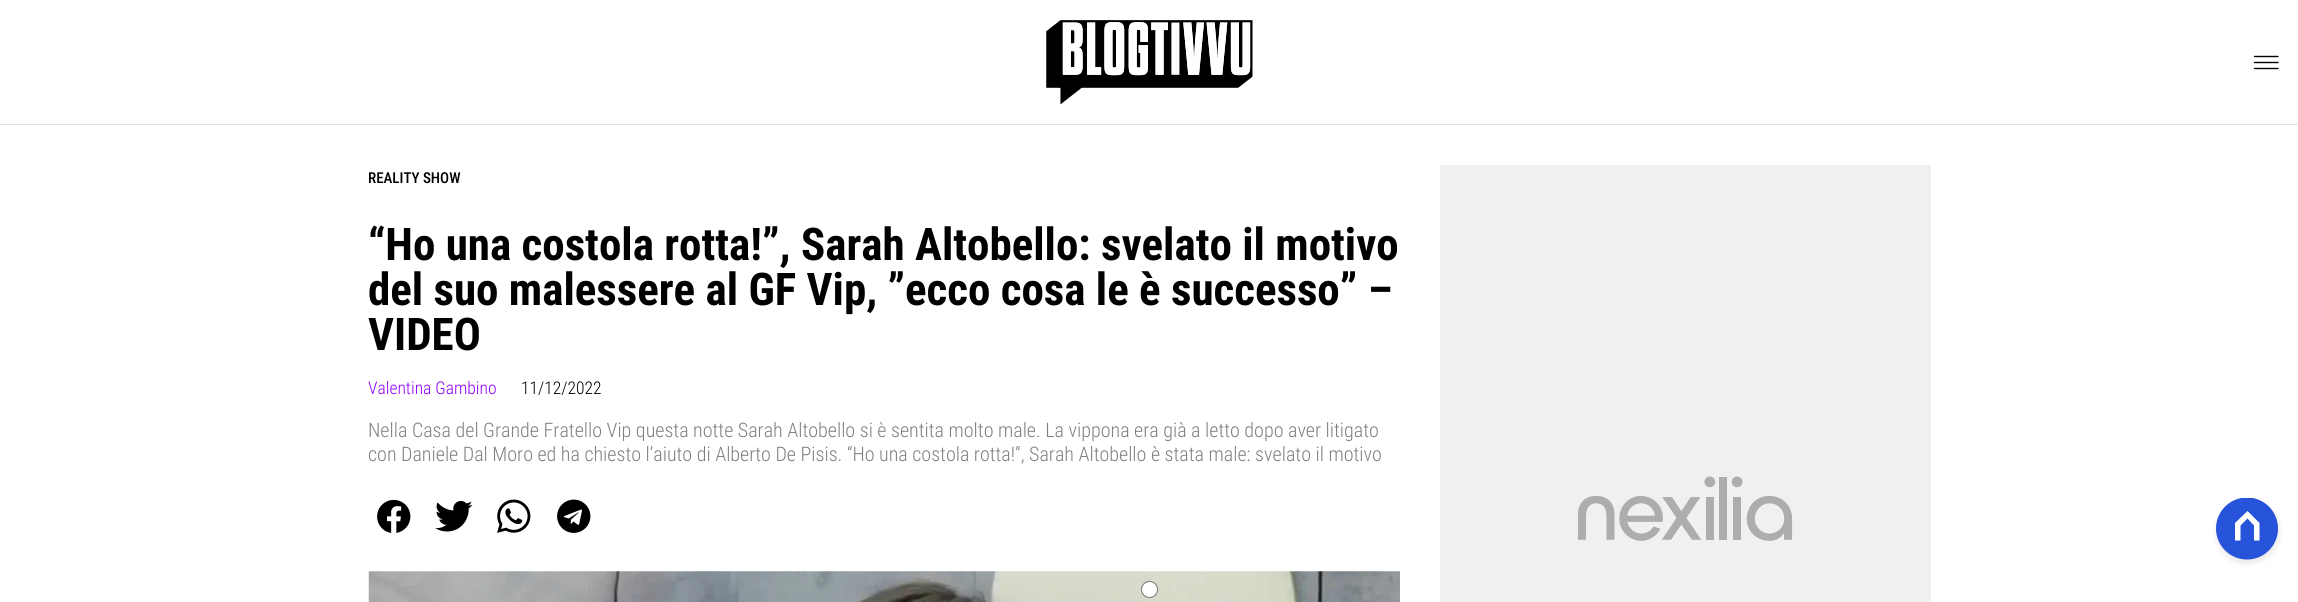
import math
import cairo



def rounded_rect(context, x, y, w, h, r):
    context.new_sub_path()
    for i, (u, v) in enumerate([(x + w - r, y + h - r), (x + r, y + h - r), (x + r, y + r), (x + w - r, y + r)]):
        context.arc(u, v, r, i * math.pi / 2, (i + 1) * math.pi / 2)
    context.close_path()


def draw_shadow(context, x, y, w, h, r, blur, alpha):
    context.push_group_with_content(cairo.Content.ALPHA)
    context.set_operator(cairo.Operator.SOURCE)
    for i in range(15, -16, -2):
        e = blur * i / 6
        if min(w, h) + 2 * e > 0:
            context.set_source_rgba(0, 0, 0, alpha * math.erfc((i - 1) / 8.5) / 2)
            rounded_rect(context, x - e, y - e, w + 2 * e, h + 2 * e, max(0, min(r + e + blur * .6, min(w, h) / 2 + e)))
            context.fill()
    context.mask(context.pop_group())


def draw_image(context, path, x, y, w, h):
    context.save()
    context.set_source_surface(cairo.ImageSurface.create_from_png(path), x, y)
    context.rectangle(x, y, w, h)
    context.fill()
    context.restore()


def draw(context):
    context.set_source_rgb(1, 1, 1)
    context.paint()
    context.set_source_rgb(226 / 255, 226 / 255, 226 / 255)
    context.rectangle(0, 124, 2298, 1)
    context.fill()
    draw_image(context, "images/1.png", 1046, 20, 207, 84)
    context.new_path()
    context.move_to(2254.5, 56.5)
    context.line_to(2278, 56.5)
    context.move_to(2254.5, 62.5)
    context.line_to(2278, 62.5)
    context.move_to(2254.5, 68.5)
    context.line_to(2278, 68.5)
    context.set_source_rgb(0, 0, 0)
    context.set_line_width(1.4)
    context.set_line_cap(cairo.LineCap.ROUND)
    context.stroke()
    draw_image(context, "images/2.png", 377, 499, 34, 34)
    draw_image(context, "images/3.png", 435, 501, 38, 31)
    draw_image(context, "images/4.png", 497, 499, 34, 34)
    draw_image(context, "images/5.png", 557, 499, 34, 34)
    draw_image(context, "images/6.png", 368, 571, 1032, 31)
    draw_image(context, "images/7.png", 1440, 165, 491, 437)
    context.set_source_rgb(0, 0, 0)
    draw_shadow(context, 2216, 500, 63, 63, 31.5, 3, 0.1)
    context.save()
    context.rectangle(2216, 498, 63, 62)
    context.clip()
    context.set_source_rgb(38 / 255, 83 / 255, 217 / 255)
    context.arc(2247, 528.5, 31, 0, 2 * math.pi)
    context.fill()
    context.restore()
    context.set_source_rgb(1, 1, 1)
    context.new_path()
    context.move_to(2259.5, 523)
    context.line_to(2247.5, 511)
    context.line_to(2235, 523)
    context.line_to(2235, 540.5)
    context.line_to(2240.5, 540.5)
    context.line_to(2240.5, 525.5)
    context.line_to(2247.5, 518.5)
    context.line_to(2254, 525.5)
    context.line_to(2254, 540.5)
    context.line_to(2259.5, 540.5)
    context.close_path()
    context.fill()
    context.arc(1149.5, 589.5, 8, 0, 2 * math.pi)
    context.fill_preserve()
    context.set_source_rgb(118 / 255, 118 / 255, 118 / 255)
    context.set_line_width(1)
    context.set_line_cap(cairo.LineCap.BUTT)
    context.stroke()
    context.select_font_face("Roboto Condensed Medium")
    context.set_font_size(15)
    context.set_source_rgb(0, 0, 0)
    context.move_to(368, 183)
    context.show_text("REALITY SHOW")
    context.select_font_face("Roboto Condensed", cairo.FontSlant.NORMAL, cairo.FontWeight.BOLD)
    context.set_font_size(45)
    context.move_to(368, 260)
    context.show_text("“Ho una costola rotta!”, Sarah Altobello: svelato il motivo")
    context.move_to(368, 305)
    context.show_text("del suo malessere al GF Vip, ”ecco cosa le è successo” –")
    context.move_to(368, 350)
    context.show_text("VIDEO")
    context.select_font_face("Roboto Condensed Light")
    context.set_font_size(17.5)
    context.set_source_rgb(143 / 255, 0, 1)
    context.move_to(368, 394)
    context.show_text("Valentina Gambino")
    context.set_source_rgb(0, 0, 0)
    context.move_to(521, 394)
    context.show_text("11/12/2022")
    context.set_font_size(20)
    context.set_source_rgb(128 / 255, 128 / 255, 128 / 255)
    context.move_to(368, 437)
    context.show_text("Nella Casa del Grande Fratello Vip questa notte Sarah Altobello si è sentita molto male. La vippona era già a letto dopo aver litigato")
    context.move_to(368, 461)
    context.show_text("con Daniele Dal Moro ed ha chiesto l’aiuto di Alberto De Pisis. “Ho una costola rotta!”, Sarah Altobello è stata male: svelato il motivo")


surface = cairo.ImageSurface(cairo.Format.RGB24, 2298, 602)
context = cairo.Context(surface)
options = cairo.FontOptions()
options.set_hint_metrics(cairo.HintMetrics.OFF)
options.set_hint_style(cairo.HintStyle.NONE)
context.set_font_options(options)
context.set_miter_limit(4)
draw(context)
surface.write_to_png("out.png")
